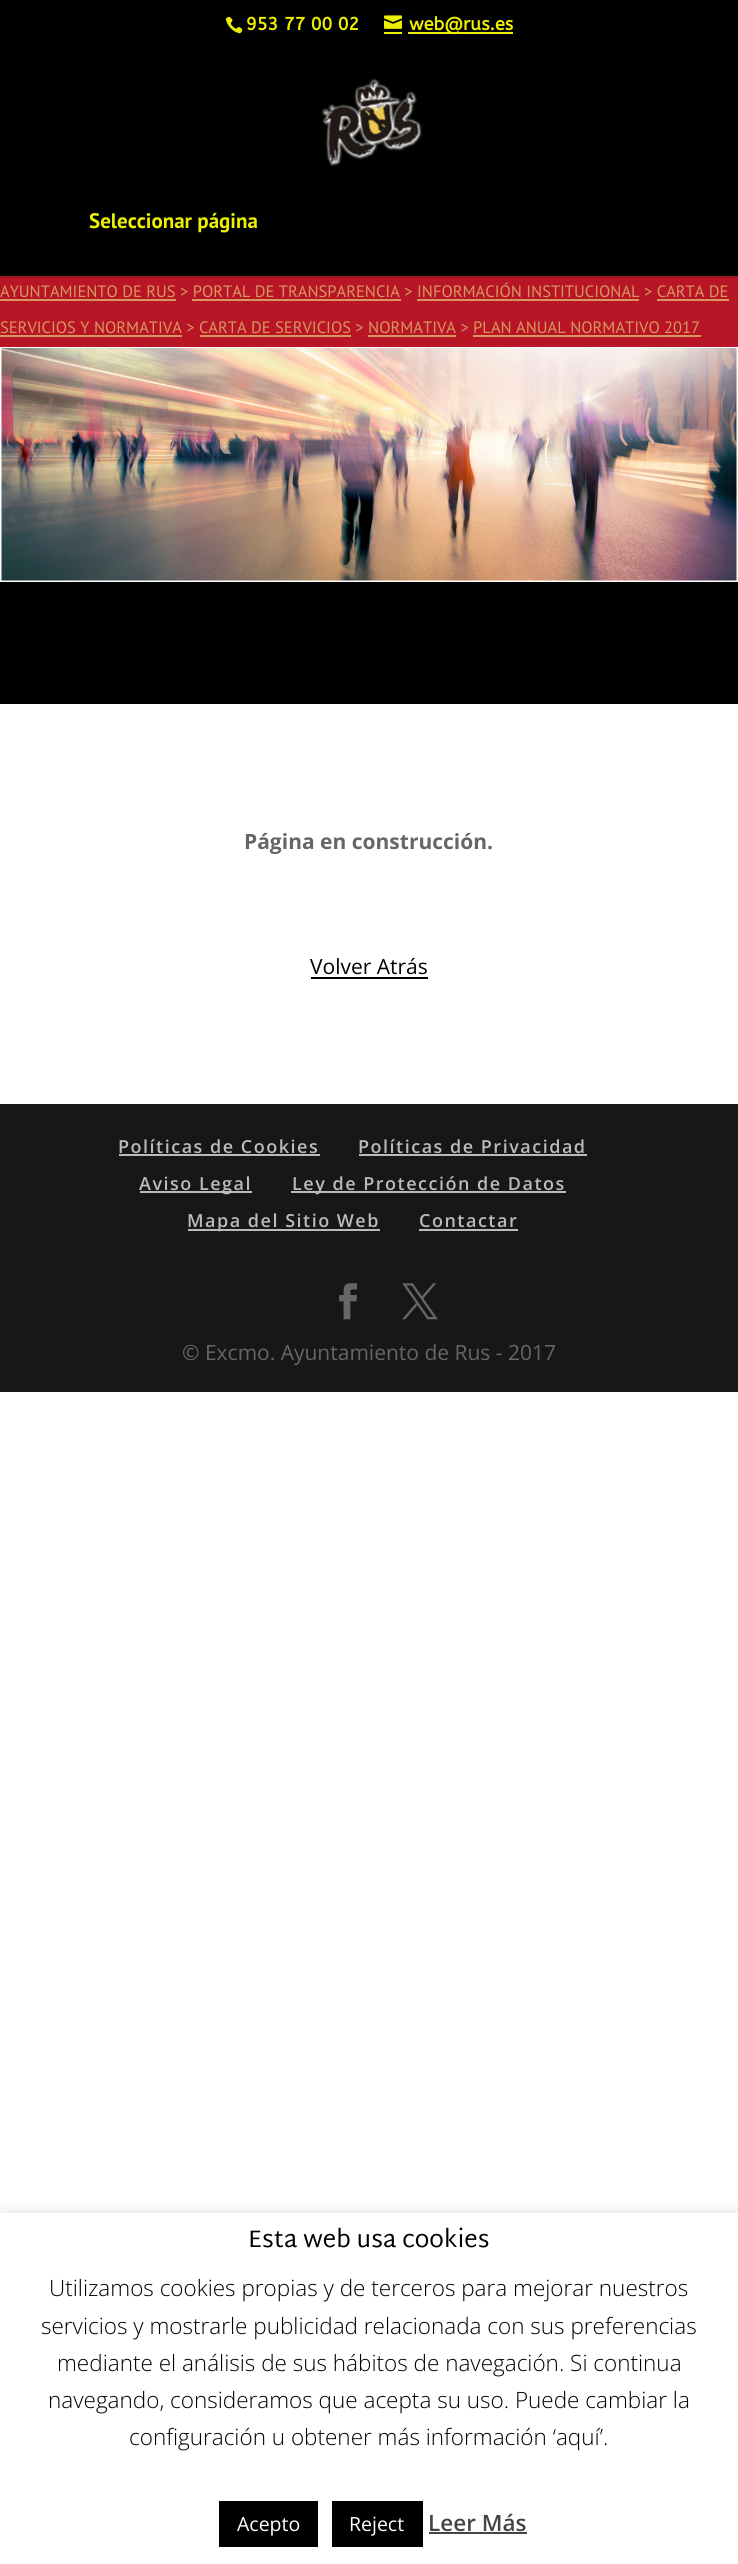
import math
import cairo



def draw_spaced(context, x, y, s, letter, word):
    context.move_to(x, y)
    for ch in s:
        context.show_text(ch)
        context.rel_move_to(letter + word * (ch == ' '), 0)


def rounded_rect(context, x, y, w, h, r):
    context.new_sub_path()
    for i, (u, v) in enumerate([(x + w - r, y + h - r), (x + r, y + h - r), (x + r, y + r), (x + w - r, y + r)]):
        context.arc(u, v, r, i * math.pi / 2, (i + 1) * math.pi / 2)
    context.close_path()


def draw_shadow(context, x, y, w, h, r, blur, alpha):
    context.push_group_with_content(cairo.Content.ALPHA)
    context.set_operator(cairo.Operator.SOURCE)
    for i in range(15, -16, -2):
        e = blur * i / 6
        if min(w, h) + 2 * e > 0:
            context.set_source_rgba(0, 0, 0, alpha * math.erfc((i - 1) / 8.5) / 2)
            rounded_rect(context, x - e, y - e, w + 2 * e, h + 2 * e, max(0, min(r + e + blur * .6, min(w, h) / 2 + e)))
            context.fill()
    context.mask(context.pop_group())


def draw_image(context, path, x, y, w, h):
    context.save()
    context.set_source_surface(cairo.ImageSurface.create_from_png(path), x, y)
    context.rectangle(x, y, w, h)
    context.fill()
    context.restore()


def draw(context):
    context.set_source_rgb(1, 1, 1)
    context.paint()
    context.set_source_rgb(0, 0, 0)
    context.rectangle(0, 0, 738, 276)
    context.fill()
    draw_image(context, "images/1.png", 225, 16, 18, 18)
    draw_image(context, "images/2.png", 384, 15, 18, 14)
    context.set_source_rgb(237 / 255, 240 / 255, 0)
    context.rectangle(384, 32, 18, 2)
    context.fill()
    context.rectangle(408, 32, 105, 2)
    context.fill()
    context.set_source_rgb(166 / 255, 20 / 255, 34 / 255)
    context.rectangle(0, 276, 738, 2)
    context.fill()
    draw_image(context, "images/3.png", 321, 78, 101, 89)
    context.set_source_rgb(184 / 255, 22 / 255, 38 / 255)
    context.rectangle(0, 278, 738, 69)
    context.fill()
    context.set_source_rgb(216 / 255, 151 / 255, 94 / 255)
    context.rectangle(0, 299, 176, 2)
    context.fill()
    context.rectangle(192, 299, 209, 2)
    context.fill()
    context.rectangle(417, 299, 222, 2)
    context.fill()
    context.rectangle(657, 299, 72, 2)
    context.fill()
    context.rectangle(0, 335, 182, 2)
    context.fill()
    context.rectangle(200, 335, 151, 2)
    context.fill()
    context.rectangle(368, 335, 88, 2)
    context.fill()
    context.rectangle(473, 335, 228, 2)
    context.fill()
    draw_image(context, "images/4.png", 1, 348, 736, 233)
    context.set_source_rgb(0, 0, 0)
    context.rectangle(0, 582, 738, 122)
    context.fill()
    context.rectangle(311, 977, 117, 2)
    context.fill()
    context.set_source_rgb(23 / 255, 23 / 255, 23 / 255)
    context.rectangle(0, 1104, 738, 288)
    context.fill()
    context.set_source_rgb(187 / 255, 187 / 255, 187 / 255)
    context.rectangle(119, 1154, 201, 2)
    context.fill()
    context.rectangle(359, 1154, 228, 2)
    context.fill()
    context.rectangle(140, 1191, 112, 2)
    context.fill()
    context.rectangle(291, 1191, 275, 2)
    context.fill()
    context.rectangle(188, 1229, 192, 2)
    context.fill()
    context.rectangle(419, 1229, 99, 2)
    context.fill()
    draw_image(context, "images/5.png", 339, 1283, 19, 37)
    draw_image(context, "images/6.png", 402, 1283, 36, 37)
    context.save()
    context.rectangle(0, 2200, 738, 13)
    context.clip()
    context.set_source_rgb(172 / 255, 171 / 255, 171 / 255)
    draw_shadow(context, 0, 2211, 738, 353, 0, 7.5, 0.3)
    context.restore()
    context.set_source_rgb(0, 0, 0)
    context.rectangle(219, 2501, 99, 46)
    context.fill()
    context.rectangle(332, 2501, 91, 46)
    context.fill()
    context.set_source_rgb(68 / 255, 68 / 255, 68 / 255)
    context.rectangle(429, 2532, 98, 2)
    context.fill()
    context.select_font_face("ABeeZee", cairo.FontSlant.NORMAL, cairo.FontWeight.BOLD)
    context.set_font_size(18)
    context.set_source_rgb(237 / 255, 240 / 255, 0)
    context.move_to(246, 30)
    context.show_text("953 77 00 02")
    context.move_to(409, 30)
    context.show_text("web@rus.es")
    context.select_font_face("PT Sans", cairo.FontSlant.NORMAL, cairo.FontWeight.BOLD)
    context.set_font_size(21)
    context.move_to(89, 228)
    context.show_text("Seleccionar página")
    context.select_font_face("PT Sans")
    context.set_font_size(16.5)
    context.set_source_rgb(216 / 255, 151 / 255, 94 / 255)
    context.move_to(0, 297)
    context.show_text("AYUNTAMIENTO DE RUS > PORTAL DE TRANSPARENCIA > INFORMACIÓN INSTITUCIONAL > CARTA DE")
    context.move_to(0, 333)
    context.show_text("SERVICIOS Y NORMATIVA > CARTA DE SERVICIOS > NORMATIVA > PLAN ANUAL NORMATIVO 2017")
    context.select_font_face("Open Sans", cairo.FontSlant.NORMAL, cairo.FontWeight.BOLD)
    context.set_font_size(21)
    context.set_source_rgb(102 / 255, 102 / 255, 102 / 255)
    context.move_to(244, 849)
    context.show_text("Página en construcción.")
    context.select_font_face("Open Sans")
    context.set_source_rgb(0, 0, 0)
    context.move_to(310, 974)
    context.show_text("Volver Atrás")
    context.select_font_face("Open Sans SemiBold")
    context.set_font_size(18)
    context.set_source_rgb(187 / 255, 187 / 255, 187 / 255)
    draw_spaced(context, 118, 1153, "Políticas de Cookies", 1.5, 0)
    draw_spaced(context, 358, 1153, "Políticas de Privacidad", 1.5, 0)
    draw_spaced(context, 139, 1190, "Aviso Legal", 1.5, 0)
    draw_spaced(context, 292, 1190, "Ley de Protección de Datos", 1.5, 0)
    draw_spaced(context, 187, 1227, "Mapa del Sitio Web", 1.5, 0)
    draw_spaced(context, 419, 1227, "Contactar", 1.5, 0)
    context.select_font_face("Open Sans")
    context.set_font_size(21)
    context.set_source_rgb(102 / 255, 102 / 255, 102 / 255)
    context.move_to(182, 1360)
    context.show_text("© Excmo. Ayuntamiento de Rus - 2017")
    context.select_font_face("Martel Sans")
    context.set_font_size(24)
    context.set_source_rgb(0, 0, 0)
    context.move_to(248, 2247)
    context.show_text("Esta web usa cookies")
    context.select_font_face("Open Sans Light")
    context.set_font_size(22.5)
    context.move_to(49, 2296)
    context.show_text("Utilizamos cookies propias y de terceros para mejorar nuestros")
    context.move_to(41, 2334)
    context.show_text("servicios y mostrarle publicidad relacionada con sus preferencias")
    context.move_to(57, 2371)
    context.show_text("mediante el análisis de sus hábitos de navegación. Si continua")
    context.move_to(48, 2408)
    context.show_text("navegando, consideramos que acepta su uso. Puede cambiar la")
    context.move_to(129, 2445)
    context.show_text("configuración u obtener más información ‘aquí’.")
    context.select_font_face("Open Sans")
    context.set_font_size(19.5)
    context.set_source_rgb(1, 1, 1)
    context.move_to(237, 2531)
    context.show_text("Acepto")
    context.move_to(349, 2531)
    context.show_text("Reject")
    context.select_font_face("Open Sans SemiBold")
    context.set_font_size(22.5)
    context.set_source_rgb(68 / 255, 68 / 255, 68 / 255)
    context.move_to(428, 2531)
    context.show_text("Leer Más")


surface = cairo.ImageSurface(cairo.Format.RGB24, 738, 2564)
context = cairo.Context(surface)
options = cairo.FontOptions()
options.set_hint_metrics(cairo.HintMetrics.OFF)
options.set_hint_style(cairo.HintStyle.NONE)
context.set_font_options(options)
context.set_miter_limit(4)
draw(context)
surface.write_to_png("out.png")
